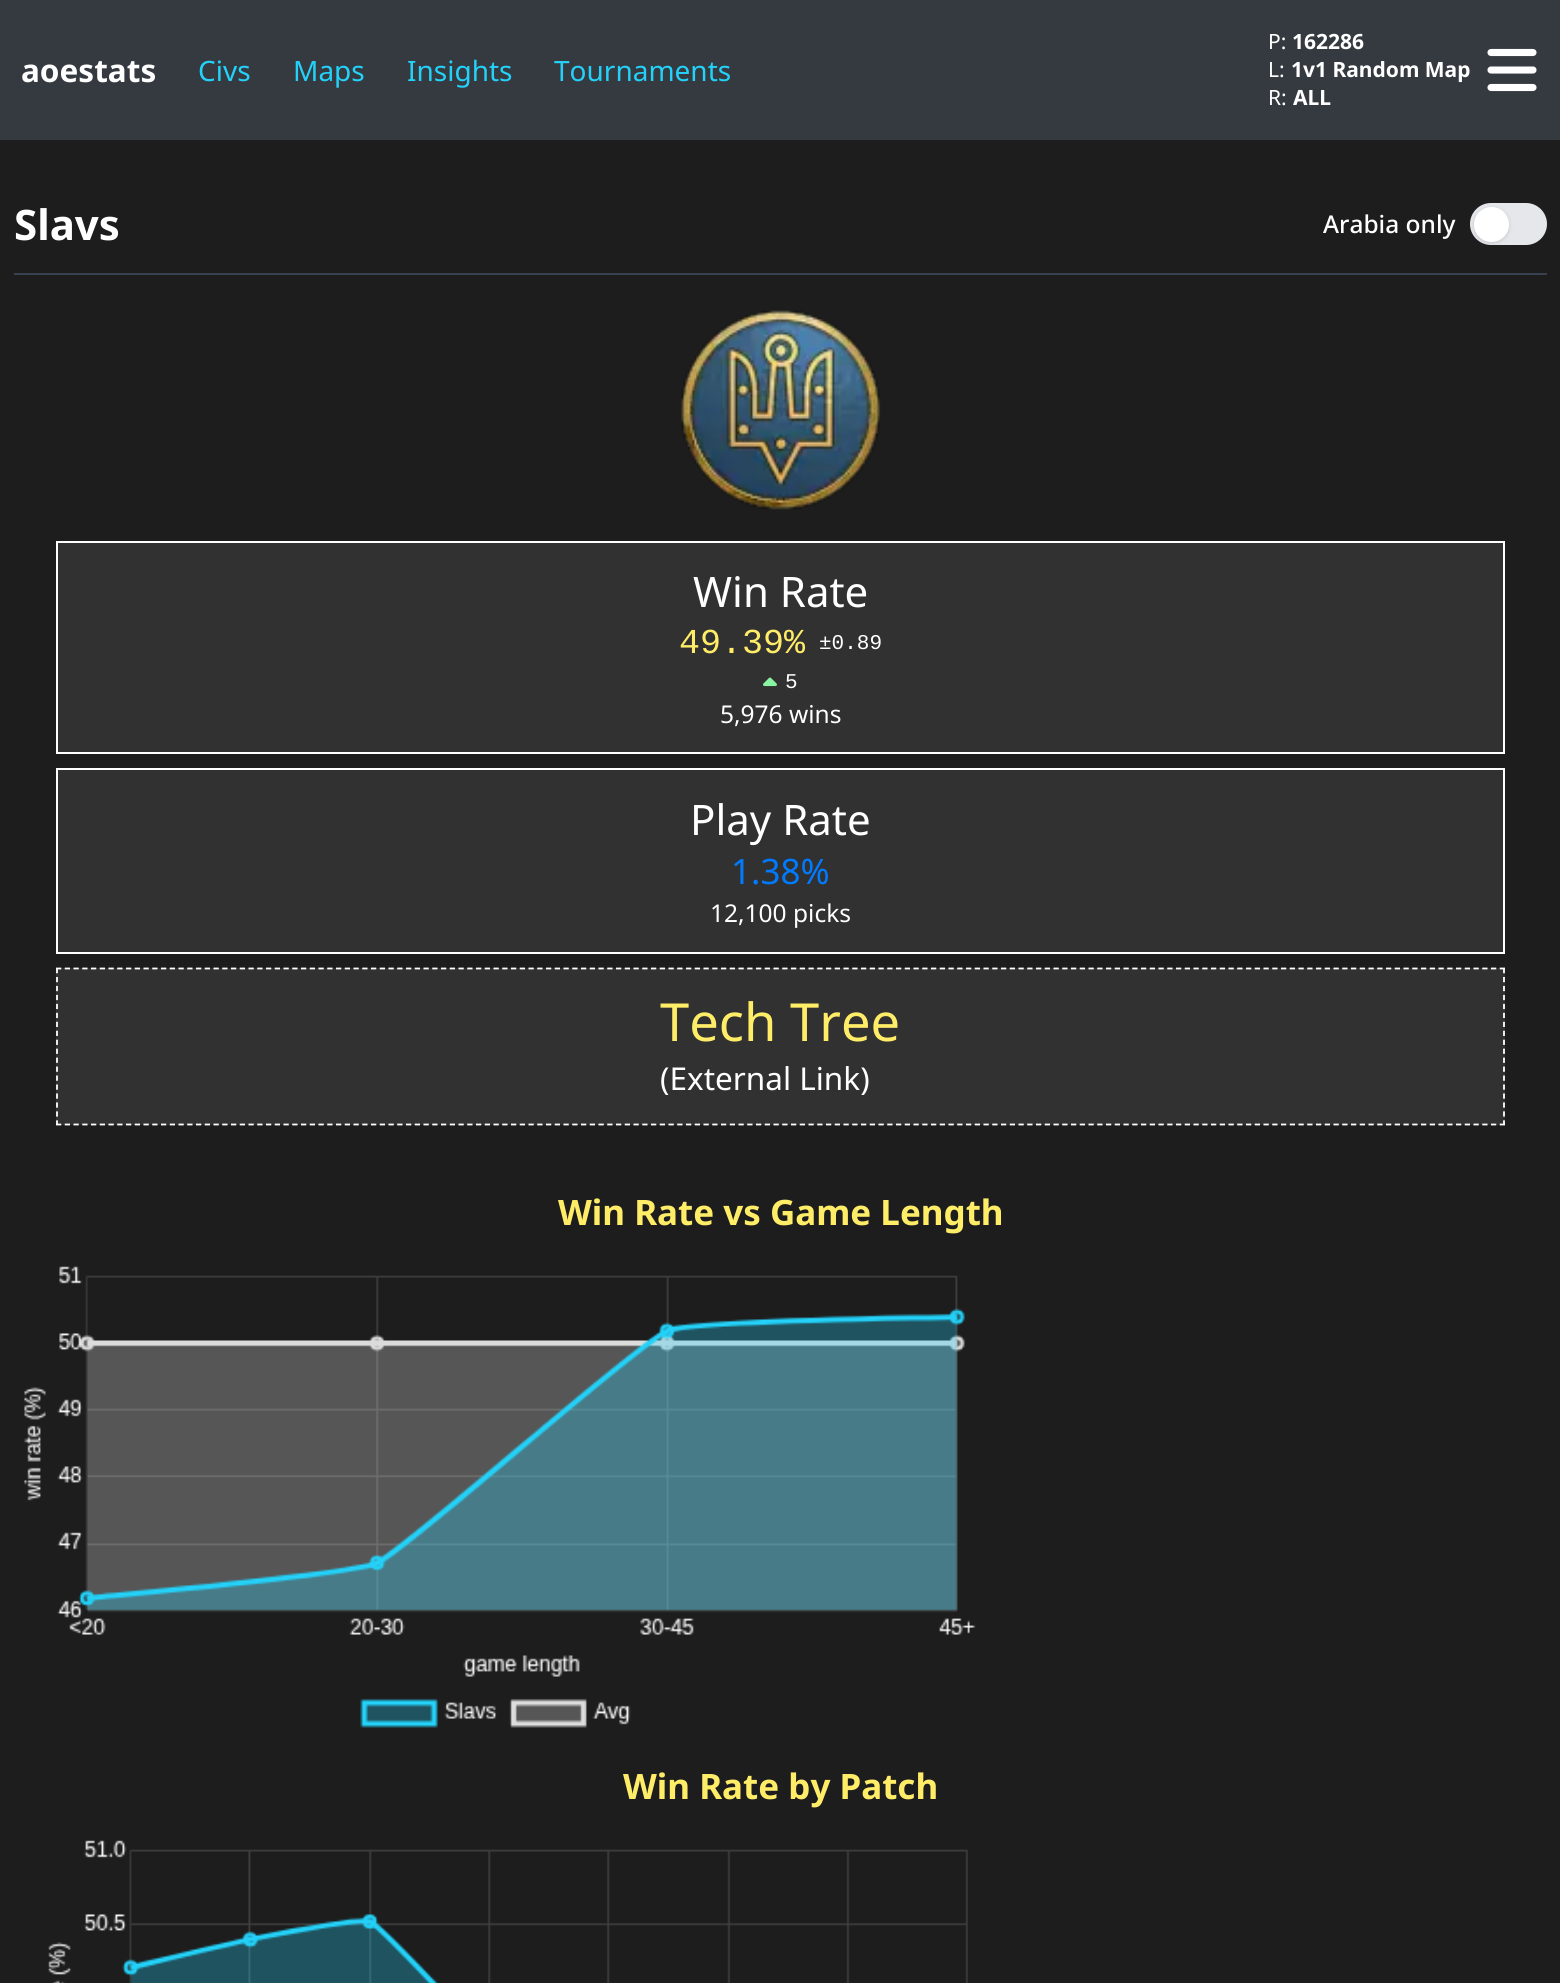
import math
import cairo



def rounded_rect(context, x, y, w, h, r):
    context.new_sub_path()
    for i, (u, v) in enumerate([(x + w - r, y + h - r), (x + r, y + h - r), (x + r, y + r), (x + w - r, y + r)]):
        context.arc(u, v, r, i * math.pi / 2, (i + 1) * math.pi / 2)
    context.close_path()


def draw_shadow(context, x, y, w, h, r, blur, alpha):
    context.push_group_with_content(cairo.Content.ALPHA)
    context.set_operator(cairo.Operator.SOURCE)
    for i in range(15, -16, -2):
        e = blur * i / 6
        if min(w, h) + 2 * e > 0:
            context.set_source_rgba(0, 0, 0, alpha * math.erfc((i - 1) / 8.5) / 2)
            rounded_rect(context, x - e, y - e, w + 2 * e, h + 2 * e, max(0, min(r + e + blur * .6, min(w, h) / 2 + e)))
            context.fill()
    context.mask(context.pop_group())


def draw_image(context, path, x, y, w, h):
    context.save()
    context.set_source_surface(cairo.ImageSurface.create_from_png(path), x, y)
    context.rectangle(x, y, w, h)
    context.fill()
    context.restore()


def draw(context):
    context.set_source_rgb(29 / 255, 29 / 255, 29 / 255)
    context.paint()
    context.set_source_rgb(52 / 255, 58 / 255, 64 / 255)
    context.rectangle(0, 0, 1560, 140)
    context.fill()
    draw_image(context, "images/1.png", 1487, 48, 50, 44)
    context.set_source_rgb(229 / 255, 231 / 255, 235 / 255)
    rounded_rect(context, 1470, 203, 77, 42, 21)
    context.fill()
    context.set_source_rgb(0, 0, 0)
    draw_shadow(context, 1475, 210, 32, 32, 16, 2, 0.1)
    draw_shadow(context, 1474, 208, 35, 35, 17.5, 2.5, 0.1)
    context.set_source_rgb(1, 1, 1)
    context.arc(1491.5, 224.5, 17.5, 0, 2 * math.pi)
    context.fill()
    context.set_source_rgb(55 / 255, 65 / 255, 81 / 255)
    context.rectangle(14, 273, 1533, 2)
    context.fill()
    draw_image(context, "images/2.png", 681, 310, 200, 200)
    context.set_source_rgb(49 / 255, 49 / 255, 49 / 255)
    context.rectangle(57, 542, 1447, 211)
    context.fill_preserve()
    context.set_source_rgb(1, 1, 1)
    context.stroke()
    draw_image(context, "images/3.png", 763, 677, 14, 10)
    context.set_source_rgb(49 / 255, 49 / 255, 49 / 255)
    context.rectangle(57, 769, 1447, 184)
    context.fill_preserve()
    context.set_source_rgb(1, 1, 1)
    context.stroke()
    context.set_source_rgb(49 / 255, 49 / 255, 49 / 255)
    context.rectangle(56, 968, 1449, 157)
    context.fill()
    context.new_path()
    context.move_to(56, 968.5)
    context.line_to(1505, 968.5)
    context.set_source_rgb(1, 1, 1)
    context.set_line_width(1.8)
    context.set_dash([5.25, 3.5])
    context.stroke()
    context.new_path()
    context.move_to(1504, 968)
    context.line_to(1504, 1125)
    context.set_dash([5.25, 3.71])
    context.stroke()
    context.new_path()
    context.move_to(56, 1124.5)
    context.line_to(1505, 1124.5)
    context.set_dash([5.25, 3.5])
    context.stroke()
    context.new_path()
    context.move_to(57, 968)
    context.line_to(57, 1125)
    context.set_dash([5.25, 3.71])
    context.stroke()
    draw_image(context, "images/4.png", 24, 1266, 952, 462)
    draw_image(context, "images/5.png", 48, 1840, 920, 143)
    context.select_font_face("Noto Sans", cairo.FontSlant.NORMAL, cairo.FontWeight.BOLD)
    context.set_font_size(31.5)
    context.move_to(21, 82)
    context.show_text("aoestats")
    context.select_font_face("Noto Sans")
    context.set_font_size(28)
    context.set_source_rgb(36 / 255, 209 / 255, 248 / 255)
    context.move_to(198, 81)
    context.show_text("Civs")
    context.move_to(293, 81)
    context.show_text("Maps")
    context.move_to(407, 81)
    context.show_text("Insights")
    context.move_to(554, 81)
    context.show_text("Tournaments")
    context.set_font_size(21)
    context.set_source_rgb(1, 1, 1)
    context.move_to(1268, 49)
    context.show_text("P:")
    context.select_font_face("Noto Sans", cairo.FontSlant.NORMAL, cairo.FontWeight.BOLD)
    context.move_to(1292, 49)
    context.show_text("162286")
    context.select_font_face("Noto Sans")
    context.move_to(1268, 77)
    context.show_text("L:")
    context.select_font_face("Noto Sans", cairo.FontSlant.NORMAL, cairo.FontWeight.BOLD)
    context.move_to(1291, 77)
    context.show_text("1v1 Random Map")
    context.select_font_face("Noto Sans")
    context.move_to(1268, 105)
    context.show_text("R:")
    context.select_font_face("Noto Sans", cairo.FontSlant.NORMAL, cairo.FontWeight.BOLD)
    context.move_to(1293, 105)
    context.show_text("ALL")
    context.set_font_size(42)
    context.move_to(14, 240)
    context.show_text("Slavs")
    context.select_font_face("Noto Sans Medium")
    context.set_font_size(24.5)
    context.move_to(1323, 233)
    context.show_text("Arabia only")
    context.select_font_face("Noto Sans")
    context.set_font_size(42)
    context.move_to(693, 607)
    context.show_text("Win Rate")
    context.select_font_face("Liberation Mono")
    context.set_font_size(35)
    context.set_source_rgb(1, 237 / 255, 104 / 255)
    context.move_to(679, 653)
    context.show_text("49.39%")
    context.set_font_size(21)
    context.set_source_rgb(1, 1, 1)
    context.move_to(819, 649)
    context.show_text("±0.89")
    context.move_to(785, 688)
    context.show_text("5")
    context.select_font_face("Noto Sans")
    context.set_font_size(24.5)
    context.move_to(720, 723)
    context.show_text("5,976 wins")
    context.set_font_size(42)
    context.move_to(690, 835)
    context.show_text("Play Rate")
    context.set_font_size(35)
    context.set_source_rgb(0, 123 / 255, 1)
    context.move_to(731, 884)
    context.show_text("1.38%")
    context.set_font_size(24.5)
    context.set_source_rgb(1, 1, 1)
    context.move_to(710, 922)
    context.show_text("12,100 picks")
    context.set_font_size(52.5)
    context.set_source_rgb(1, 237 / 255, 104 / 255)
    context.move_to(660, 1041)
    context.show_text("Tech Tree")
    context.set_font_size(31.5)
    context.set_source_rgb(1, 1, 1)
    context.move_to(660, 1090)
    context.show_text("(External Link)")
    context.select_font_face("Noto Sans", cairo.FontSlant.NORMAL, cairo.FontWeight.BOLD)
    context.set_font_size(35)
    context.set_source_rgb(1, 237 / 255, 104 / 255)
    context.move_to(558, 1225)
    context.show_text("Win Rate vs Game Length")
    context.move_to(623, 1799)
    context.show_text("Win Rate by Patch")


surface = cairo.ImageSurface(cairo.Format.RGB24, 1560, 1983)
context = cairo.Context(surface)
options = cairo.FontOptions()
options.set_hint_metrics(cairo.HintMetrics.OFF)
options.set_hint_style(cairo.HintStyle.NONE)
context.set_font_options(options)
context.set_miter_limit(4)
draw(context)
surface.write_to_png("out.png")
